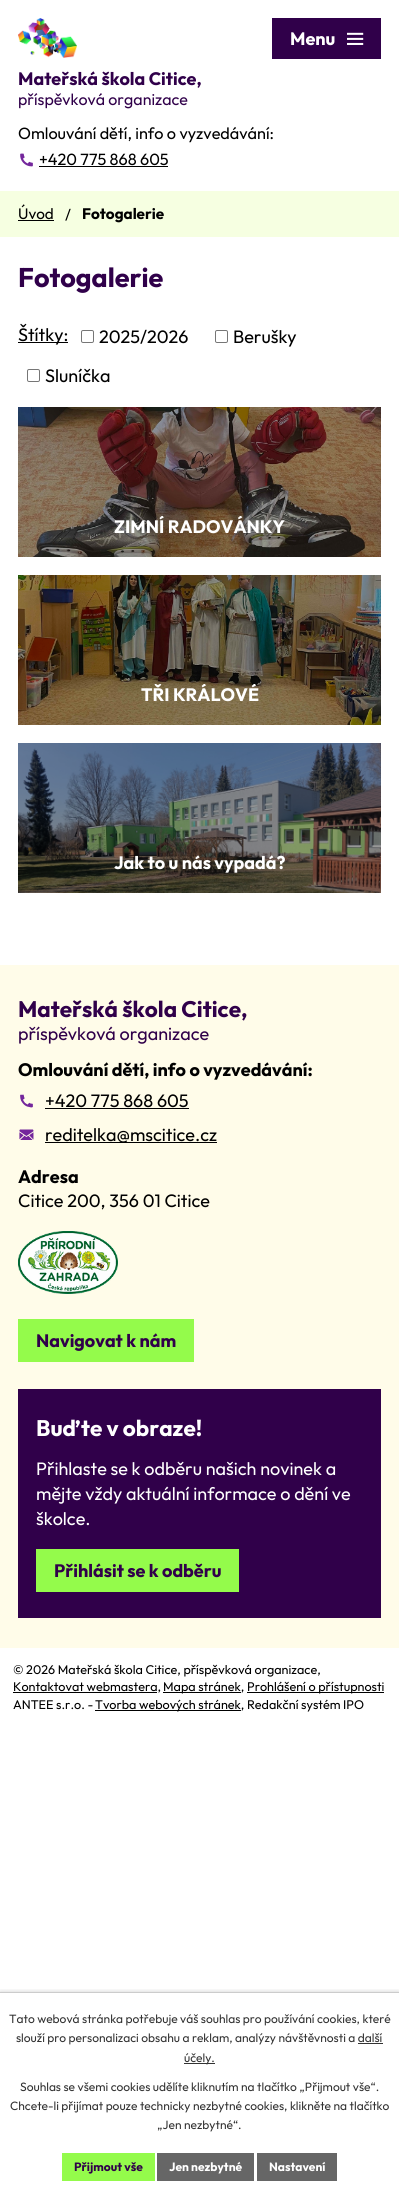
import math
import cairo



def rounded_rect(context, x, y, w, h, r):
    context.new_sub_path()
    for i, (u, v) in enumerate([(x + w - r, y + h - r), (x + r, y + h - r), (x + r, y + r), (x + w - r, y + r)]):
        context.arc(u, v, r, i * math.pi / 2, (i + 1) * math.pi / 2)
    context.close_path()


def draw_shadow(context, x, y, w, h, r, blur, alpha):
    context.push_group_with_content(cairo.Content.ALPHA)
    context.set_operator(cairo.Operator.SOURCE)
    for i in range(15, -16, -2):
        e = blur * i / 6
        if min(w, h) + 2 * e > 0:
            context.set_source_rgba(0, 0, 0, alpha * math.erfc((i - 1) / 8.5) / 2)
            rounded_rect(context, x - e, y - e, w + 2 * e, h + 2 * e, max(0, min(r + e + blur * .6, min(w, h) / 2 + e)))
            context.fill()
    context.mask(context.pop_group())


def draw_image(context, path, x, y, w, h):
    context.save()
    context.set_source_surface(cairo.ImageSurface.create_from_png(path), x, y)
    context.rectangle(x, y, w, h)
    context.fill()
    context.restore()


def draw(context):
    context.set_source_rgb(1, 1, 1)
    context.paint()
    context.set_source_rgb(48 / 255, 0, 74 / 255)
    context.rectangle(272, 18, 109, 41)
    context.fill()
    draw_image(context, "images/1.png", 347, 32, 17, 13)
    draw_image(context, "images/2.png", 18, 18, 59, 40)
    draw_image(context, "images/3.png", 20, 153, 13, 14)
    context.set_source_rgb(0, 0, 0)
    context.rectangle(39, 166, 129, 1)
    context.fill()
    context.set_source_rgb(246 / 255, 1, 225 / 255)
    context.rectangle(0, 191, 399, 46)
    context.fill()
    context.set_source_rgb(0, 0, 0)
    context.rectangle(18, 220, 36, 1)
    context.fill()
    context.rectangle(18, 342, 50, 1)
    context.fill()
    rounded_rect(context, 81.5, 330.5, 12, 12, 1.5)
    context.set_source_rgb(118 / 255, 118 / 255, 118 / 255)
    context.set_line_width(1)
    context.stroke()
    rounded_rect(context, 215.5, 330.5, 12, 12, 1.5)
    context.stroke()
    rounded_rect(context, 27.5, 369.5, 12, 12, 1.5)
    context.stroke()
    draw_image(context, "images/4.png", 18, 407, 363, 150)
    draw_image(context, "images/5.png", 18, 575, 363, 150)
    draw_image(context, "images/6.png", 18, 743, 363, 150)
    context.set_source_rgb(1, 252 / 255, 233 / 255)
    context.rectangle(0, 965, 399, 683)
    context.fill()
    draw_image(context, "images/7.png", 20, 1094, 13, 14)
    context.set_source_rgb(0, 0, 0)
    context.rectangle(45, 1108, 144, 1)
    context.fill()
    draw_image(context, "images/8.png", 19, 1129, 15, 11)
    context.rectangle(45, 1142, 172, 1)
    context.fill()
    draw_image(context, "images/9.png", 18, 1231, 100, 63)
    context.set_source_rgb(148 / 255, 251 / 255, 75 / 255)
    context.rectangle(18, 1319, 176, 43)
    context.fill()
    context.set_source_rgb(48 / 255, 0, 74 / 255)
    context.rectangle(18, 1389, 363, 229)
    context.fill()
    context.set_source_rgb(148 / 255, 251 / 255, 75 / 255)
    context.rectangle(36, 1549, 203, 43)
    context.fill()
    context.set_source_rgb(0, 0, 0)
    context.rectangle(13, 1692, 144, 1)
    context.fill()
    context.rectangle(163, 1692, 78, 1)
    context.fill()
    context.rectangle(247, 1692, 137, 1)
    context.fill()
    context.rectangle(95, 1710, 146, 1)
    context.fill()
    context.save()
    context.rectangle(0, 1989, 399, 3)
    context.clip()
    context.set_source_rgb(0, 0, 0)
    draw_shadow(context, 0, 1992, 399, 204, 0, 2.5, 0.2)
    context.restore()
    context.set_source_rgb(204 / 255, 204 / 255, 204 / 255)
    context.rectangle(0, 1992, 399, 1)
    context.fill()
    context.set_source_rgb(51 / 255, 51 / 255, 51 / 255)
    context.rectangle(358, 2043, 25, 1)
    context.fill()
    context.rectangle(184, 2063, 31, 1)
    context.fill()
    context.set_source_rgb(148 / 255, 251 / 255, 75 / 255)
    context.rectangle(62, 2153, 93, 28)
    context.fill()
    context.set_source_rgb(102 / 255, 102 / 255, 102 / 255)
    context.rectangle(157, 2153, 97, 28)
    context.fill()
    context.rectangle(257, 2153, 80, 28)
    context.fill()
    context.select_font_face("Outfit", cairo.FontSlant.NORMAL, cairo.FontWeight.BOLD)
    context.set_font_size(18)
    context.set_source_rgb(1, 1, 1)
    context.move_to(290, 45)
    context.show_text("Menu")
    context.set_source_rgb(48 / 255, 0, 74 / 255)
    context.move_to(18, 85)
    context.show_text("Mateřská škola Citice,")
    context.select_font_face("Outfit")
    context.set_font_size(16)
    context.move_to(18, 105)
    context.show_text("příspěvková organizace")
    context.set_font_size(16.25)
    context.set_source_rgb(0, 0, 0)
    context.move_to(18, 139)
    context.show_text("Omlouvání dětí, info o vyzvedávání:")
    context.move_to(39, 165)
    context.show_text("+420 775 868 605")
    context.set_font_size(15.25)
    context.move_to(18, 219)
    context.show_text("Úvod")
    context.move_to(65, 220)
    context.show_text("/")
    context.select_font_face("Outfit", cairo.FontSlant.NORMAL, cairo.FontWeight.BOLD)
    context.move_to(82, 219)
    context.show_text("Fotogalerie")
    context.set_font_size(27)
    context.set_source_rgb(48 / 255, 0, 74 / 255)
    context.move_to(18, 287)
    context.show_text("Fotogalerie")
    context.select_font_face("Outfit")
    context.set_font_size(18)
    context.set_source_rgb(0, 0, 0)
    context.move_to(18, 341)
    context.show_text("Štítky:")
    context.move_to(99, 343)
    context.show_text("2025/2026")
    context.move_to(233, 343)
    context.show_text("Berušky")
    context.move_to(45, 382)
    context.show_text("Sluníčka")
    context.save()
    context.rectangle(18, 516, 363, 23)
    context.clip()
    context.select_font_face("Outfit", cairo.FontSlant.NORMAL, cairo.FontWeight.BOLD)
    context.set_source_rgb(1, 1, 1)
    context.move_to(114, 533)
    context.show_text("ZIMNÍ RADOVÁNKY")
    context.restore()
    context.save()
    context.rectangle(18, 684, 363, 23)
    context.clip()
    context.select_font_face("Outfit", cairo.FontSlant.NORMAL, cairo.FontWeight.BOLD)
    context.set_source_rgb(1, 1, 1)
    context.move_to(141, 701)
    context.show_text("TŘI KRÁLOVÉ")
    context.restore()
    context.select_font_face("Outfit", cairo.FontSlant.NORMAL, cairo.FontWeight.BOLD)
    context.set_source_rgb(1, 1, 1)
    context.move_to(114, 869)
    context.show_text("Jak to u nás vypadá?")
    context.set_font_size(22.5)
    context.set_source_rgb(48 / 255, 0, 74 / 255)
    context.move_to(18, 1017)
    context.show_text("Mateřská škola Citice,")
    context.select_font_face("Outfit")
    context.set_font_size(18)
    context.move_to(18, 1040)
    context.show_text("příspěvková organizace")
    context.select_font_face("Outfit", cairo.FontSlant.NORMAL, cairo.FontWeight.BOLD)
    context.set_source_rgb(0, 0, 0)
    context.move_to(18, 1076)
    context.show_text("Omlouvání dětí, info o vyzvedávání:")
    context.select_font_face("Outfit")
    context.move_to(45, 1107)
    context.show_text("+420 775 868 605")
    context.move_to(45, 1141)
    context.show_text("reditelka@mscitice.cz")
    context.select_font_face("Outfit", cairo.FontSlant.NORMAL, cairo.FontWeight.BOLD)
    context.move_to(18, 1183)
    context.show_text("Adresa")
    context.select_font_face("Outfit")
    context.move_to(18, 1207)
    context.show_text("Citice 200, 356 01 Citice")
    context.select_font_face("Outfit", cairo.FontSlant.NORMAL, cairo.FontWeight.BOLD)
    context.set_source_rgb(48 / 255, 0, 74 / 255)
    context.move_to(36, 1347)
    context.show_text("Navigovat k nám")
    context.set_font_size(22.5)
    context.set_source_rgb(1, 1, 1)
    context.move_to(36, 1436)
    context.show_text("Buďte v obraze!")
    context.select_font_face("Outfit")
    context.set_font_size(18)
    context.move_to(36, 1475)
    context.show_text("Přihlaste se k odběru našich novinek a")
    context.move_to(36, 1500)
    context.show_text("mějte vždy aktuální informace o dění ve")
    context.move_to(36, 1525)
    context.show_text("školce.")
    context.select_font_face("Outfit", cairo.FontSlant.NORMAL, cairo.FontWeight.BOLD)
    context.set_source_rgb(48 / 255, 0, 74 / 255)
    context.move_to(54, 1577)
    context.show_text("Přihlásit se k odběru")
    context.select_font_face("Outfit")
    context.set_font_size(12.6)
    context.set_source_rgb(0, 0, 0)
    context.move_to(13, 1674)
    context.show_text("© 2026 Mateřská škola Citice, příspěvková organizace,")
    context.move_to(13, 1691)
    context.show_text("Kontaktovat webmastera,")
    context.move_to(163, 1691)
    context.show_text("Mapa stránek,")
    context.move_to(247, 1691)
    context.show_text("Prohlášení o přístupnosti")
    context.move_to(13, 1709)
    context.show_text("ANTEE s.r.o. -")
    context.move_to(95, 1709)
    context.show_text("Tvorba webových stránek, Redakční systém IPO")
    context.set_font_size(12)
    context.set_source_rgb(51 / 255, 51 / 255, 51 / 255)
    context.move_to(9, 2023)
    context.show_text("Tato webová stránka potřebuje váš souhlas pro používání cookies, které")
    context.move_to(16, 2042)
    context.show_text("slouží pro personalizaci obsahu a reklam, analýzy návštěvnosti a další")
    context.move_to(184, 2062)
    context.show_text("účely.")
    context.move_to(20, 2091)
    context.show_text("Souhlas se všemi cookies udělíte kliknutím na tlačítko „Přijmout vše“.")
    context.move_to(10, 2110)
    context.show_text("Chcete-li přijímat pouze technicky nezbytné cookies, klikněte na tlačítko")
    context.move_to(157, 2129)
    context.show_text("„Jen nezbytné“.")
    context.select_font_face("Outfit", cairo.FontSlant.NORMAL, cairo.FontWeight.BOLD)
    context.set_source_rgb(48 / 255, 0, 74 / 255)
    context.move_to(74, 2171)
    context.show_text("Přijmout vše")
    context.set_source_rgb(1, 1, 1)
    context.move_to(169, 2171)
    context.show_text("Jen nezbytné")
    context.move_to(269, 2171)
    context.show_text("Nastavení")


surface = cairo.ImageSurface(cairo.Format.RGB24, 399, 2196)
context = cairo.Context(surface)
options = cairo.FontOptions()
options.set_hint_metrics(cairo.HintMetrics.OFF)
options.set_hint_style(cairo.HintStyle.NONE)
context.set_font_options(options)
context.set_miter_limit(4)
draw(context)
surface.write_to_png("out.png")
